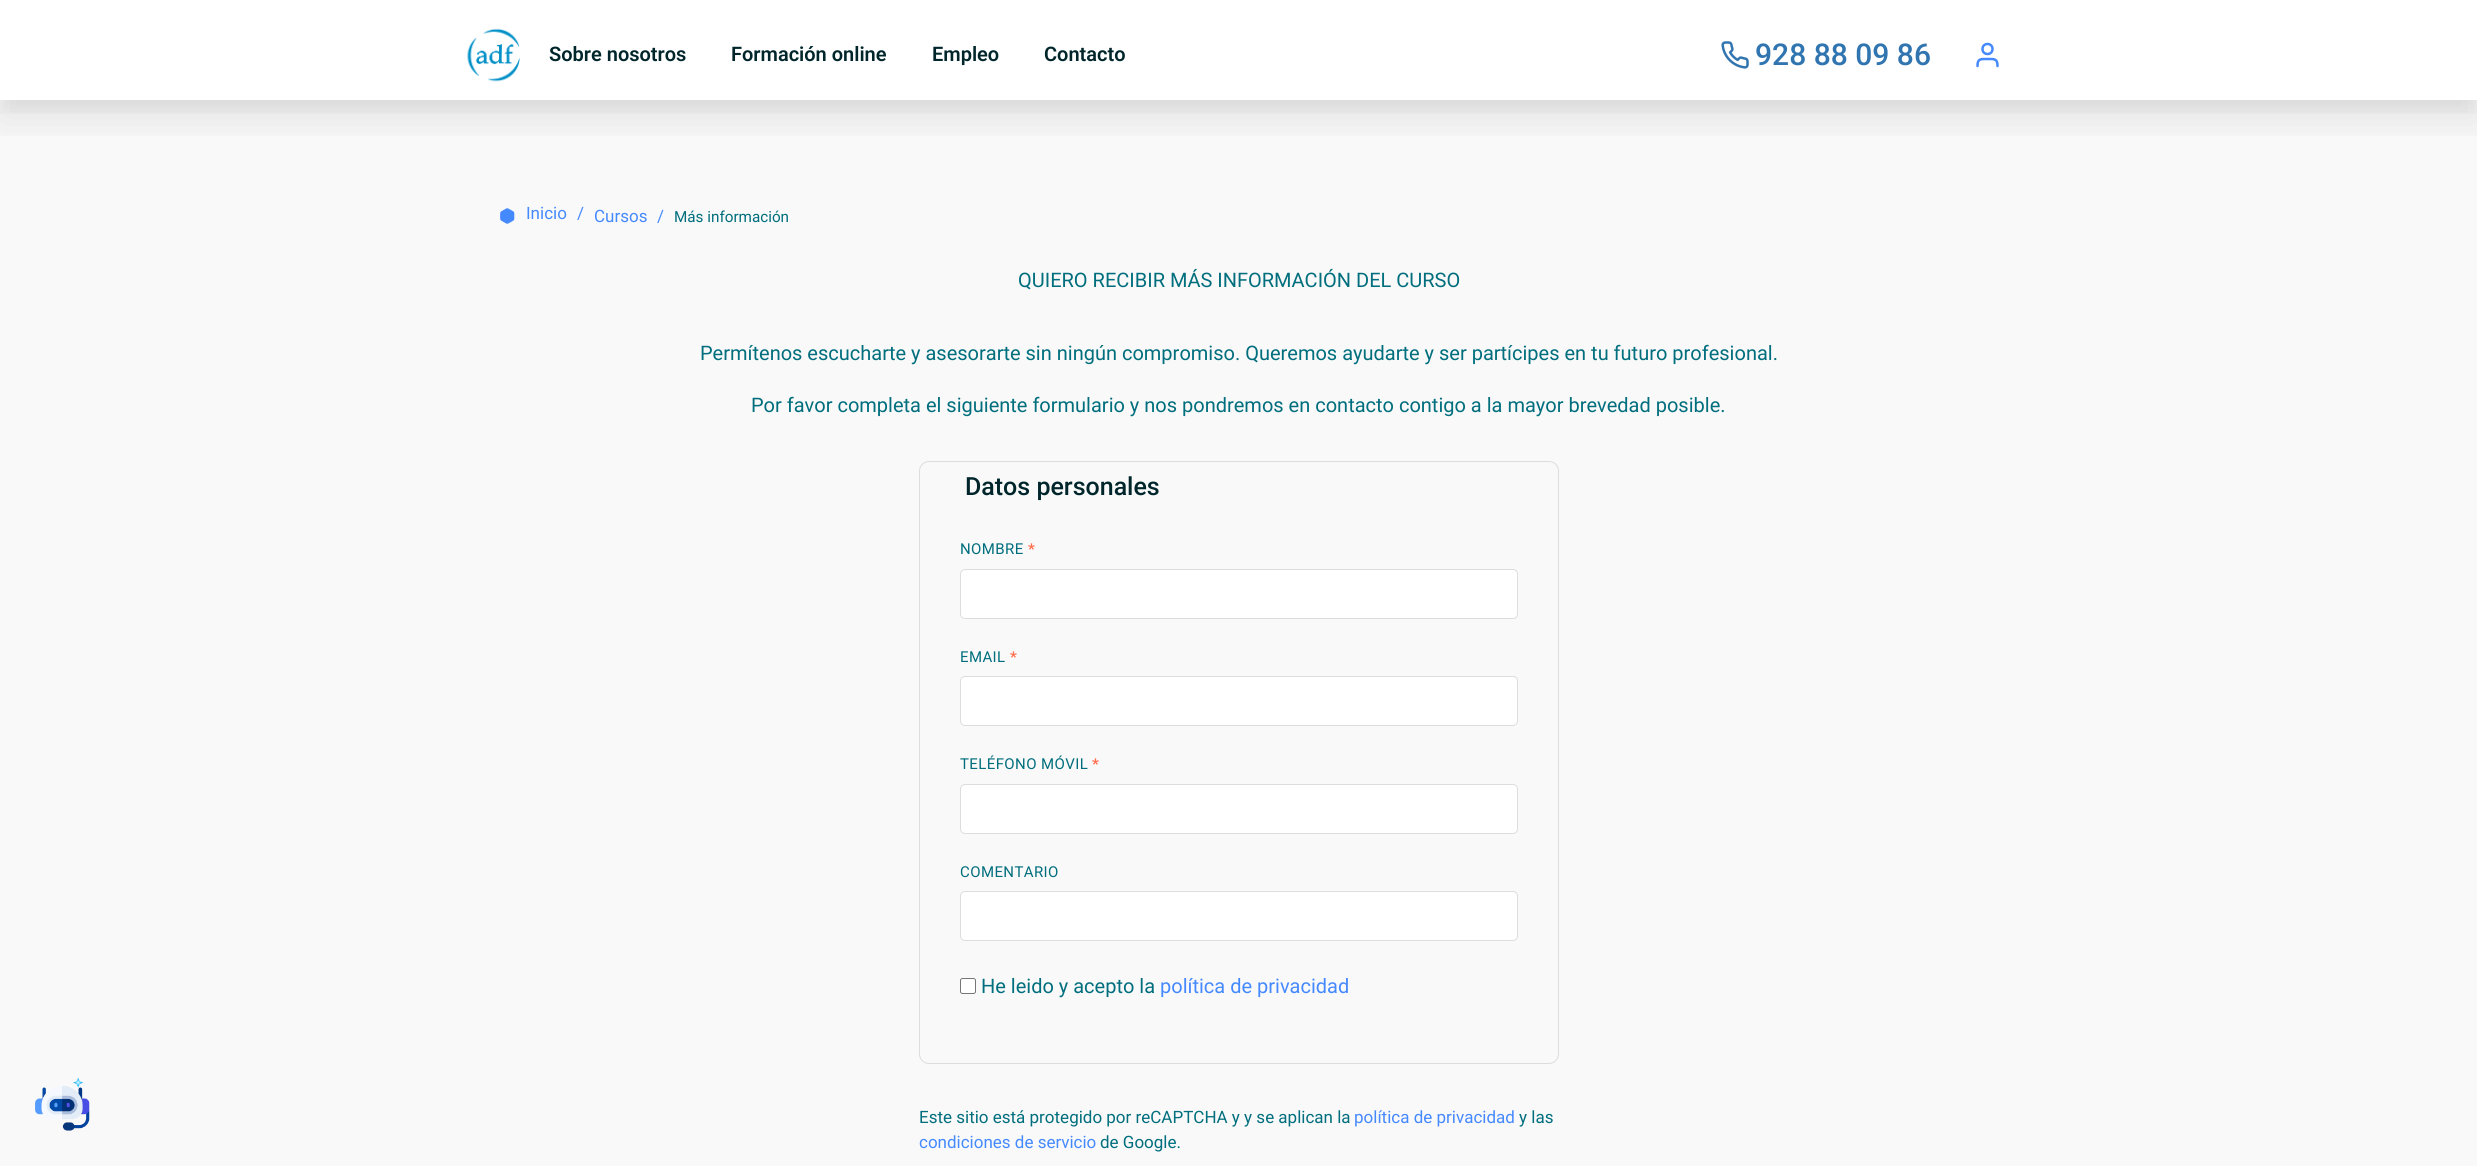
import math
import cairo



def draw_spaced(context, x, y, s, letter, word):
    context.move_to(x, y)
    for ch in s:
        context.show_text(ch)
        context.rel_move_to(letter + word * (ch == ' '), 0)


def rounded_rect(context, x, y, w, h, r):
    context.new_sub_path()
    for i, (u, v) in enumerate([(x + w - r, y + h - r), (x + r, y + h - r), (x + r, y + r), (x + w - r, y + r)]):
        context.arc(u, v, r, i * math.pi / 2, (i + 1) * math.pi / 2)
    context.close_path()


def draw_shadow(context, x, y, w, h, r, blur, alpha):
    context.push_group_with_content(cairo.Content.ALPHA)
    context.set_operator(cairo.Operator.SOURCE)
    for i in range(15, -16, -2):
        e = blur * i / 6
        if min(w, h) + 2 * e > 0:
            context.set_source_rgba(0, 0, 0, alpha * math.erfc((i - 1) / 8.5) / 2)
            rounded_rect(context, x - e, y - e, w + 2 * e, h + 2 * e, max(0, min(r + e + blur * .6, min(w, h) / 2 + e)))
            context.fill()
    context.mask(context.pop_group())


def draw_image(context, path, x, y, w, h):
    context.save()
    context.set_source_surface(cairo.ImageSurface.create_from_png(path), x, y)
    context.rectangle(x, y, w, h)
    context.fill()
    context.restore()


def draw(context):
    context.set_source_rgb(1, 1, 1)
    context.paint()
    context.set_source_rgb(249 / 255, 249 / 255, 249 / 255)
    context.rectangle(0, 100, 2477, 1066)
    context.fill()
    context.save()
    context.rectangle(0, 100, 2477, 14)
    context.clip()
    context.set_source_rgb(0, 0, 0)
    draw_shadow(context, 0, 10, 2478, 100, 0, 10, 0.06)
    context.restore()
    context.save()
    context.rectangle(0, 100, 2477, 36)
    context.clip()
    context.set_source_rgb(0, 0, 0)
    draw_shadow(context, 0, 23, 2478, 100, 0, 20, 0.08)
    context.restore()
    draw_image(context, "images/1.png", 467, 28, 53, 54)
    draw_image(context, "images/2.png", 1721, 41, 28, 28)
    context.new_path()
    context.move_to(1997.5, 66)
    context.curve_to(1997.5, 58.5, 1994.5, 59, 1987.5, 59)
    context.curve_to(1980.5, 59, 1977.5, 58.5, 1977.5, 66)
    context.set_source_rgb(69 / 255, 137 / 255, 1)
    context.set_line_width(2.5)
    context.set_line_cap(cairo.LineCap.ROUND)
    context.set_line_join(cairo.LineJoin.ROUND)
    context.stroke()
    context.arc(1987.5, 49, 5, 0, 2 * math.pi)
    context.set_line_cap(cairo.LineCap.BUTT)
    context.set_line_join(cairo.LineJoin.MITER)
    context.stroke()
    draw_image(context, "images/3.png", 35, 1077, 55, 54)
    draw_image(context, "images/4.png", 500, 208, 15, 16)
    rounded_rect(context, 919.5, 461.5, 639, 602, 9.5)
    context.set_source_rgb(221 / 255, 221 / 255, 221 / 255)
    context.set_line_width(1)
    context.stroke()
    context.set_source_rgb(1, 1, 1)
    rounded_rect(context, 960.5, 569.5, 557, 49, 4.5)
    context.fill_preserve()
    context.set_source_rgb(221 / 255, 221 / 255, 221 / 255)
    context.stroke()
    context.set_source_rgb(1, 1, 1)
    rounded_rect(context, 960.5, 676.5, 557, 49, 4.5)
    context.fill_preserve()
    context.set_source_rgb(221 / 255, 221 / 255, 221 / 255)
    context.stroke()
    context.set_source_rgb(1, 1, 1)
    rounded_rect(context, 960.5, 784.5, 557, 49, 4.5)
    context.fill_preserve()
    context.set_source_rgb(221 / 255, 221 / 255, 221 / 255)
    context.stroke()
    context.set_source_rgb(1, 1, 1)
    rounded_rect(context, 960.5, 891.5, 557, 49, 4.5)
    context.fill_preserve()
    context.set_source_rgb(221 / 255, 221 / 255, 221 / 255)
    context.stroke()
    context.set_source_rgb(1, 1, 1)
    rounded_rect(context, 960.5, 978.5, 15, 15, 2)
    context.fill_preserve()
    context.set_source_rgb(118 / 255, 118 / 255, 118 / 255)
    context.stroke()
    context.select_font_face("Roboto SemiBold")
    context.set_font_size(20)
    context.set_source_rgb(0, 38 / 255, 43 / 255)
    context.move_to(549, 61)
    context.show_text("Sobre nosotros")
    context.move_to(731, 61)
    context.show_text("Formación online")
    context.move_to(932, 61)
    context.show_text("Empleo")
    context.move_to(1044, 61)
    context.show_text("Contacto")
    context.select_font_face("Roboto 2 Medium")
    context.set_font_size(30)
    context.set_source_rgb(48 / 255, 117 / 255, 176 / 255)
    context.move_to(1755, 65)
    context.show_text("928 88 09 86")
    context.select_font_face("Roboto")
    context.set_font_size(17)
    context.set_source_rgb(69 / 255, 137 / 255, 1)
    context.move_to(526, 219)
    context.show_text("Inicio")
    context.move_to(577, 219)
    context.show_text("/")
    context.move_to(594, 222)
    context.show_text("Cursos")
    context.move_to(657, 222)
    context.show_text("/")
    context.set_font_size(15.25)
    context.set_source_rgb(0, 110 / 255, 125 / 255)
    context.move_to(674, 222)
    context.show_text("Más información")
    context.set_font_size(20)
    context.move_to(1018, 287)
    context.show_text("QUIERO RECIBIR MÁS INFORMACIÓN DEL CURSO")
    context.move_to(700, 360)
    context.show_text("Permítenos escucharte y asesorarte sin ningún compromiso. Queremos ayudarte y ser partícipes en tu futuro profesional.")
    context.move_to(751, 412)
    context.show_text("Por favor completa el siguiente formulario y nos pondremos en contacto contigo a la mayor brevedad posible.")
    context.select_font_face("Roboto Medium")
    context.set_font_size(25)
    context.set_source_rgb(0, 38 / 255, 43 / 255)
    context.move_to(965, 495)
    context.show_text("Datos personales")
    context.select_font_face("Roboto")
    context.set_font_size(15)
    context.set_source_rgb(0, 110 / 255, 125 / 255)
    draw_spaced(context, 960, 554, "NOMBRE", 0.4, 0)
    context.select_font_face("Roboto", cairo.FontSlant.NORMAL, cairo.FontWeight.BOLD)
    context.set_source_rgb(1, 109 / 255, 75 / 255)
    draw_spaced(context, 1028, 554, "*", 0.4, 0)
    context.select_font_face("Roboto")
    context.set_source_rgb(0, 110 / 255, 125 / 255)
    draw_spaced(context, 960, 662, "EMAIL", 0.4, 0)
    context.select_font_face("Roboto", cairo.FontSlant.NORMAL, cairo.FontWeight.BOLD)
    context.set_source_rgb(1, 109 / 255, 75 / 255)
    draw_spaced(context, 1010, 662, "*", 0.4, 0)
    context.select_font_face("Roboto")
    context.set_source_rgb(0, 110 / 255, 125 / 255)
    draw_spaced(context, 960, 769, "TELÉFONO MÓVIL", 0.4, 0)
    context.select_font_face("Roboto", cairo.FontSlant.NORMAL, cairo.FontWeight.BOLD)
    context.set_source_rgb(1, 109 / 255, 75 / 255)
    draw_spaced(context, 1092, 769, "*", 0.4, 0)
    context.select_font_face("Roboto")
    context.set_source_rgb(0, 110 / 255, 125 / 255)
    draw_spaced(context, 960, 877, "COMENTARIO", 0.4, 0)
    context.set_font_size(20)
    context.move_to(981, 993)
    context.show_text("He leido y acepto la")
    context.set_source_rgb(69 / 255, 137 / 255, 1)
    context.move_to(1160, 993)
    context.show_text("política de privacidad")
    context.set_font_size(17)
    context.set_source_rgb(0, 110 / 255, 125 / 255)
    context.move_to(919, 1123)
    context.show_text("Este sitio está protegido por reCAPTCHA y y se aplican la")
    context.set_source_rgb(69 / 255, 137 / 255, 1)
    context.move_to(1354, 1123)
    context.show_text("política de privacidad")
    context.set_source_rgb(0, 110 / 255, 125 / 255)
    context.move_to(1519, 1123)
    context.show_text("y las")
    context.set_source_rgb(69 / 255, 137 / 255, 1)
    context.move_to(919, 1148)
    context.show_text("condiciones de servicio")
    context.set_source_rgb(0, 110 / 255, 125 / 255)
    context.move_to(1100, 1148)
    context.show_text("de Google.")


surface = cairo.ImageSurface(cairo.Format.RGB24, 2477, 1166)
context = cairo.Context(surface)
options = cairo.FontOptions()
options.set_hint_metrics(cairo.HintMetrics.OFF)
options.set_hint_style(cairo.HintStyle.NONE)
context.set_font_options(options)
context.set_miter_limit(4)
draw(context)
surface.write_to_png("out.png")
